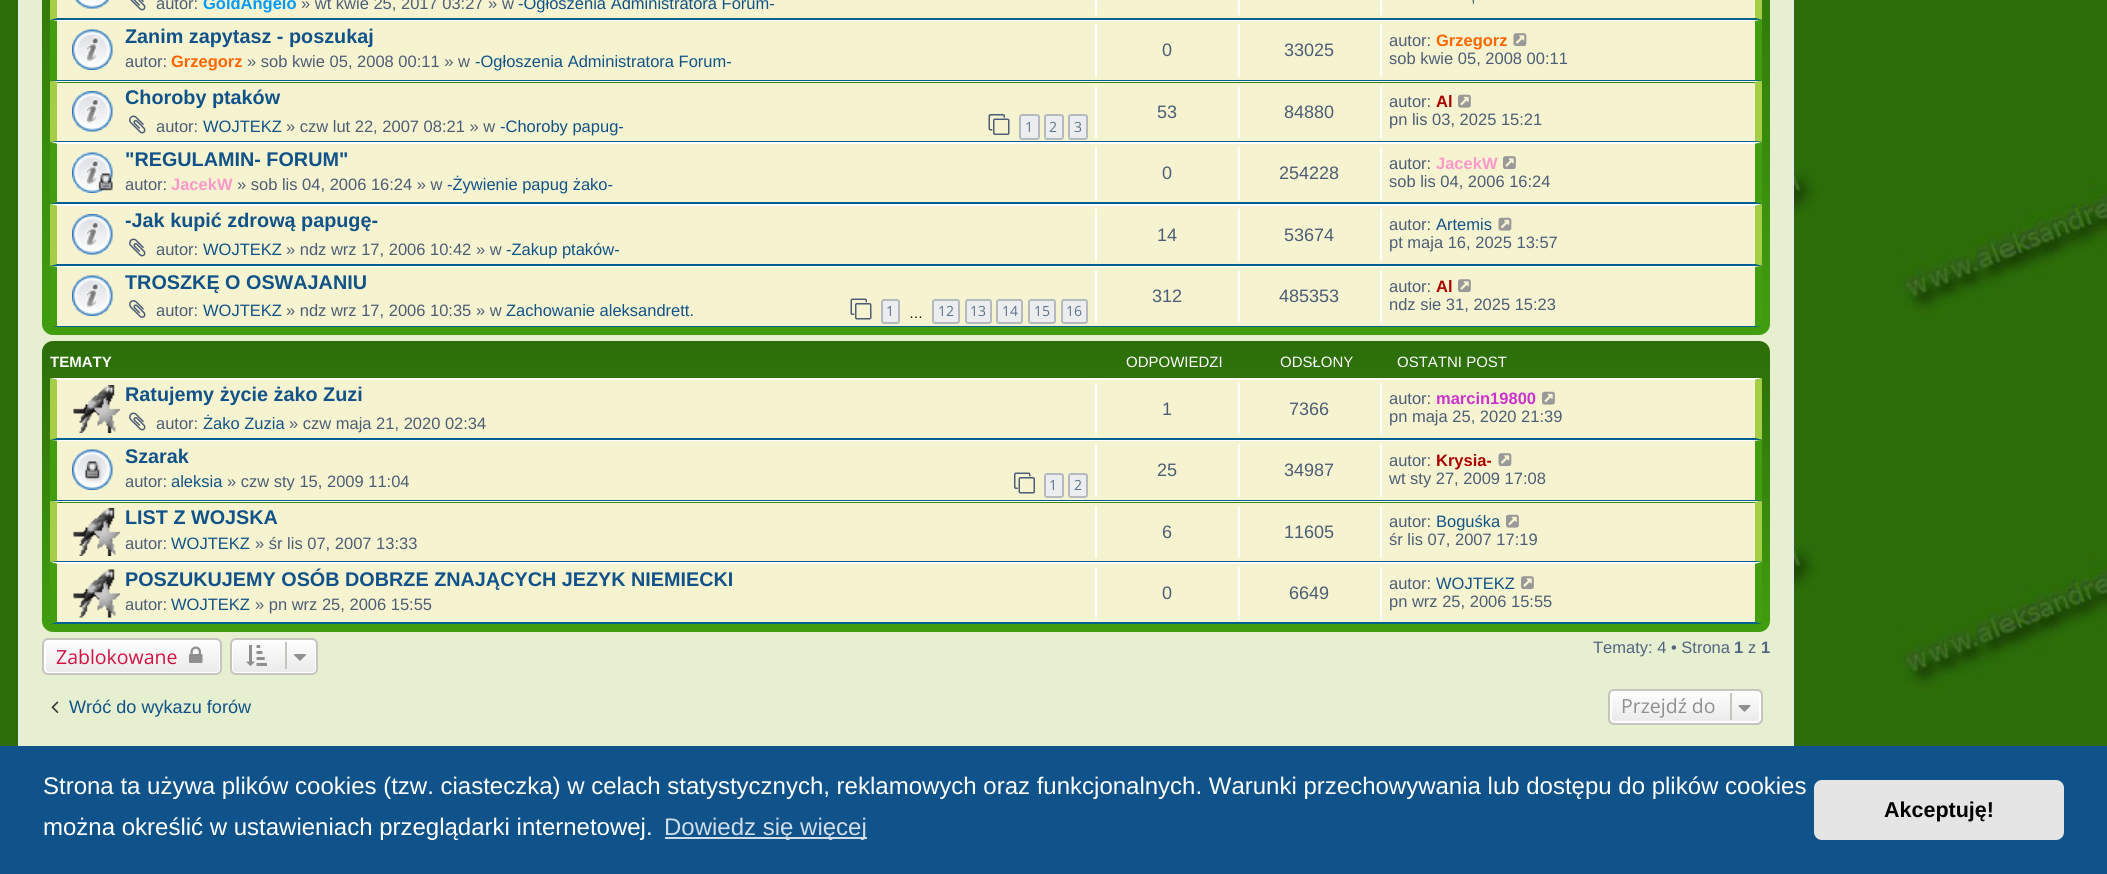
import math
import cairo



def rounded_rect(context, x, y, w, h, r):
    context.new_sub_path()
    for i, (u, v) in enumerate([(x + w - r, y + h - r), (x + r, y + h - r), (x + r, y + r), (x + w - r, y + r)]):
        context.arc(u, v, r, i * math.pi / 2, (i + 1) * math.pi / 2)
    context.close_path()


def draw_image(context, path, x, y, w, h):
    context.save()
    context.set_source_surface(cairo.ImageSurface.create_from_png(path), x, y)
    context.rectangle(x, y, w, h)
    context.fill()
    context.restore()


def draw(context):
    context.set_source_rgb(1, 1, 1)
    context.paint()
    draw_image(context, "images/1.png", 0, 0, 2107, 746)
    context.set_source_rgb(230 / 255, 239 / 255, 207 / 255)
    context.rectangle(20, 0, 1772, 746)
    context.fill()
    context.rectangle(19, -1, 1774, 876)
    context.set_source_rgb(230 / 255, 233 / 255, 237 / 255)
    context.stroke()
    gradient = cairo.LinearGradient(906, -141, 906, 335)
    gradient.add_color_stop_rgba(0, 44 / 255, 109 / 255, 9 / 255, 1)
    gradient.add_color_stop_rgba(1, 65 / 255, 158 / 255, 15 / 255, 1)
    context.set_source(gradient)
    rounded_rect(context, 42, -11, 1728, 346, 11)
    context.fill()
    context.set_source_rgb(246 / 255, 244 / 255, 208 / 255)
    context.rectangle(57, 0, 1698, 18)
    context.fill()
    context.set_source_rgb(165 / 255, 206 / 255, 70 / 255)
    context.new_path()
    context.move_to(1762, -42)
    context.line_to(1762, 20)
    context.line_to(1755, 18)
    context.line_to(1755, -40)
    context.close_path()
    context.fill()
    context.set_source_rgb(0, 96 / 255, 143 / 255)
    context.new_path()
    context.move_to(1762, 20)
    context.line_to(50, 20)
    context.line_to(57, 18)
    context.line_to(1755, 18)
    context.close_path()
    context.fill()
    context.set_source_rgb(165 / 255, 206 / 255, 70 / 255)
    context.new_path()
    context.move_to(50, 20)
    context.line_to(50, -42)
    context.line_to(57, -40)
    context.line_to(57, 18)
    context.close_path()
    context.fill()
    draw_image(context, "images/2.png", 74, 0, 36, 9)
    draw_image(context, "images/3.png", 130, 0, 16, 11)
    context.set_source_rgb(1, 1, 1)
    context.rectangle(1095, 0, 2, 15)
    context.fill()
    context.rectangle(1238, 0, 2, 15)
    context.fill()
    context.rectangle(1380, 0, 2, 15)
    context.fill()
    context.set_source_rgb(246 / 255, 244 / 255, 208 / 255)
    context.rectangle(57, 21, 1698, 59)
    context.fill()
    context.set_source_rgb(1, 1, 1)
    context.new_path()
    context.move_to(50, 20)
    context.line_to(1762, 20)
    context.line_to(1755, 21)
    context.line_to(57, 21)
    context.close_path()
    context.fill()
    context.set_source_rgb(66 / 255, 158 / 255, 15 / 255)
    context.new_path()
    context.move_to(1762, 20)
    context.line_to(1762, 81)
    context.line_to(1755, 80)
    context.line_to(1755, 21)
    context.close_path()
    context.fill()
    context.set_source_rgb(0, 96 / 255, 143 / 255)
    context.new_path()
    context.move_to(1762, 81)
    context.line_to(50, 81)
    context.line_to(57, 80)
    context.line_to(1755, 80)
    context.close_path()
    context.fill()
    context.set_source_rgb(66 / 255, 158 / 255, 15 / 255)
    context.new_path()
    context.move_to(50, 81)
    context.line_to(50, 20)
    context.line_to(57, 21)
    context.line_to(57, 80)
    context.close_path()
    context.fill()
    draw_image(context, "images/4.png", 72, 29, 41, 41)
    context.set_source_rgb(1, 1, 1)
    context.rectangle(1095, 24, 2, 53)
    context.fill()
    context.rectangle(1238, 24, 2, 53)
    context.fill()
    context.rectangle(1380, 24, 2, 53)
    context.fill()
    draw_image(context, "images/5.png", 1513, 33, 14, 14)
    context.set_source_rgb(246 / 255, 244 / 255, 208 / 255)
    context.rectangle(57, 83, 1698, 58)
    context.fill()
    context.set_source_rgb(1, 1, 1)
    context.new_path()
    context.move_to(50, 81)
    context.line_to(1762, 81)
    context.line_to(1755, 82)
    context.line_to(57, 82)
    context.close_path()
    context.fill()
    context.set_source_rgb(165 / 255, 206 / 255, 70 / 255)
    context.new_path()
    context.move_to(1762, 81)
    context.line_to(1762, 142)
    context.line_to(1755, 141)
    context.line_to(1755, 82)
    context.close_path()
    context.fill()
    context.set_source_rgb(0, 96 / 255, 143 / 255)
    context.new_path()
    context.move_to(1762, 142)
    context.line_to(50, 142)
    context.line_to(57, 141)
    context.line_to(1755, 141)
    context.close_path()
    context.fill()
    context.set_source_rgb(165 / 255, 206 / 255, 70 / 255)
    context.new_path()
    context.move_to(50, 142)
    context.line_to(50, 81)
    context.line_to(57, 82)
    context.line_to(57, 141)
    context.close_path()
    context.fill()
    draw_image(context, "images/6.png", 72, 91, 41, 41)
    draw_image(context, "images/7.png", 129, 115, 17, 19)
    draw_image(context, "images/8.png", 988, 114, 22, 21)
    context.set_source_rgb(236 / 255, 237 / 255, 238 / 255)
    rounded_rect(context, 1020, 115, 19, 24, 2)
    context.fill_preserve()
    context.set_source_rgb(180 / 255, 186 / 255, 192 / 255)
    context.stroke()
    context.set_source_rgb(236 / 255, 237 / 255, 238 / 255)
    rounded_rect(context, 1045, 115, 18, 24, 2)
    context.fill_preserve()
    context.set_source_rgb(180 / 255, 186 / 255, 192 / 255)
    context.stroke()
    context.set_source_rgb(236 / 255, 237 / 255, 238 / 255)
    rounded_rect(context, 1069, 115, 18, 24, 2)
    context.fill_preserve()
    context.set_source_rgb(180 / 255, 186 / 255, 192 / 255)
    context.stroke()
    context.set_source_rgb(1, 1, 1)
    context.rectangle(1095, 86, 2, 52)
    context.fill()
    context.rectangle(1238, 86, 2, 52)
    context.fill()
    context.rectangle(1380, 86, 2, 52)
    context.fill()
    draw_image(context, "images/9.png", 1458, 94, 13, 14)
    context.set_source_rgb(246 / 255, 244 / 255, 208 / 255)
    context.rectangle(57, 144, 1698, 58)
    context.fill()
    context.set_source_rgb(1, 1, 1)
    context.new_path()
    context.move_to(50, 142)
    context.line_to(1762, 142)
    context.line_to(1755, 144)
    context.line_to(57, 144)
    context.close_path()
    context.fill()
    context.set_source_rgb(66 / 255, 158 / 255, 15 / 255)
    context.new_path()
    context.move_to(1762, 142)
    context.line_to(1762, 204)
    context.line_to(1755, 202)
    context.line_to(1755, 144)
    context.close_path()
    context.fill()
    context.set_source_rgb(0, 96 / 255, 143 / 255)
    context.new_path()
    context.move_to(1762, 204)
    context.line_to(50, 204)
    context.line_to(57, 202)
    context.line_to(1755, 202)
    context.close_path()
    context.fill()
    context.set_source_rgb(66 / 255, 158 / 255, 15 / 255)
    context.new_path()
    context.move_to(50, 204)
    context.line_to(50, 142)
    context.line_to(57, 144)
    context.line_to(57, 202)
    context.close_path()
    context.fill()
    draw_image(context, "images/10.png", 72, 152, 41, 41)
    context.set_source_rgb(1, 1, 1)
    context.rectangle(1095, 147, 2, 53)
    context.fill()
    context.rectangle(1238, 147, 2, 53)
    context.fill()
    context.rectangle(1380, 147, 2, 53)
    context.fill()
    draw_image(context, "images/11.png", 1503, 156, 13, 14)
    context.set_source_rgb(246 / 255, 244 / 255, 208 / 255)
    context.rectangle(57, 206, 1698, 58)
    context.fill()
    context.set_source_rgb(1, 1, 1)
    context.new_path()
    context.move_to(50, 204)
    context.line_to(1762, 204)
    context.line_to(1755, 206)
    context.line_to(57, 206)
    context.close_path()
    context.fill()
    context.set_source_rgb(165 / 255, 206 / 255, 70 / 255)
    context.new_path()
    context.move_to(1762, 204)
    context.line_to(1762, 266)
    context.line_to(1755, 264)
    context.line_to(1755, 206)
    context.close_path()
    context.fill()
    context.set_source_rgb(0, 96 / 255, 143 / 255)
    context.new_path()
    context.move_to(1762, 266)
    context.line_to(50, 266)
    context.line_to(57, 264)
    context.line_to(1755, 264)
    context.close_path()
    context.fill()
    context.set_source_rgb(165 / 255, 206 / 255, 70 / 255)
    context.new_path()
    context.move_to(50, 266)
    context.line_to(50, 204)
    context.line_to(57, 206)
    context.line_to(57, 264)
    context.close_path()
    context.fill()
    draw_image(context, "images/6.png", 72, 214, 41, 41)
    draw_image(context, "images/7.png", 129, 238, 17, 19)
    context.set_source_rgb(1, 1, 1)
    context.rectangle(1095, 209, 2, 52)
    context.fill()
    context.rectangle(1238, 209, 2, 52)
    context.fill()
    context.rectangle(1380, 209, 2, 52)
    context.fill()
    draw_image(context, "images/12.png", 1498, 217, 14, 14)
    context.set_source_rgb(246 / 255, 244 / 255, 208 / 255)
    context.rectangle(57, 267, 1698, 59)
    context.fill()
    context.set_source_rgb(1, 1, 1)
    context.new_path()
    context.move_to(50, 266)
    context.line_to(1762, 266)
    context.line_to(1755, 267)
    context.line_to(57, 267)
    context.close_path()
    context.fill()
    context.set_source_rgb(66 / 255, 158 / 255, 15 / 255)
    context.new_path()
    context.move_to(1762, 266)
    context.line_to(1762, 327)
    context.line_to(1755, 326)
    context.line_to(1755, 267)
    context.close_path()
    context.fill()
    context.set_source_rgb(0, 96 / 255, 143 / 255)
    context.new_path()
    context.move_to(1762, 327)
    context.line_to(50, 327)
    context.line_to(57, 326)
    context.line_to(1755, 326)
    context.close_path()
    context.fill()
    context.set_source_rgb(66 / 255, 158 / 255, 15 / 255)
    context.new_path()
    context.move_to(50, 327)
    context.line_to(50, 266)
    context.line_to(57, 267)
    context.line_to(57, 326)
    context.close_path()
    context.fill()
    draw_image(context, "images/4.png", 72, 275, 41, 41)
    draw_image(context, "images/13.png", 129, 300, 17, 18)
    draw_image(context, "images/14.png", 850, 298, 22, 22)
    context.set_source_rgb(236 / 255, 237 / 255, 238 / 255)
    rounded_rect(context, 882, 300, 17, 23, 2)
    context.fill_preserve()
    context.set_source_rgb(180 / 255, 186 / 255, 192 / 255)
    context.stroke()
    context.set_source_rgb(236 / 255, 237 / 255, 238 / 255)
    rounded_rect(context, 933, 300, 26, 23, 2)
    context.fill_preserve()
    context.set_source_rgb(180 / 255, 186 / 255, 192 / 255)
    context.stroke()
    context.set_source_rgb(236 / 255, 237 / 255, 238 / 255)
    rounded_rect(context, 966, 300, 25, 23, 2)
    context.fill_preserve()
    context.set_source_rgb(180 / 255, 186 / 255, 192 / 255)
    context.stroke()
    context.set_source_rgb(236 / 255, 237 / 255, 238 / 255)
    rounded_rect(context, 997, 300, 25, 23, 2)
    context.fill_preserve()
    context.set_source_rgb(180 / 255, 186 / 255, 192 / 255)
    context.stroke()
    context.set_source_rgb(236 / 255, 237 / 255, 238 / 255)
    rounded_rect(context, 1029, 300, 26, 23, 2)
    context.fill_preserve()
    context.set_source_rgb(180 / 255, 186 / 255, 192 / 255)
    context.stroke()
    context.set_source_rgb(236 / 255, 237 / 255, 238 / 255)
    rounded_rect(context, 1062, 300, 25, 23, 2)
    context.fill_preserve()
    context.set_source_rgb(180 / 255, 186 / 255, 192 / 255)
    context.stroke()
    context.set_source_rgb(1, 1, 1)
    context.rectangle(1095, 270, 2, 53)
    context.fill()
    context.rectangle(1238, 270, 2, 53)
    context.fill()
    context.rectangle(1380, 270, 2, 53)
    context.fill()
    draw_image(context, "images/11.png", 1458, 279, 13, 14)
    gradient = cairo.LinearGradient(906, 340, 906, 632)
    gradient.add_color_stop_rgba(0, 44 / 255, 109 / 255, 9 / 255, 1)
    gradient.add_color_stop_rgba(1, 65 / 255, 158 / 255, 15 / 255, 1)
    context.set_source(gradient)
    rounded_rect(context, 42, 341, 1728, 291, 11)
    context.fill()
    context.set_source_rgb(246 / 255, 244 / 255, 208 / 255)
    context.rectangle(57, 380, 1698, 58)
    context.fill()
    context.set_source_rgb(1, 1, 1)
    context.new_path()
    context.move_to(50, 378)
    context.line_to(1762, 378)
    context.line_to(1755, 380)
    context.line_to(57, 380)
    context.close_path()
    context.fill()
    context.set_source_rgb(165 / 255, 206 / 255, 70 / 255)
    context.new_path()
    context.move_to(1762, 378)
    context.line_to(1762, 440)
    context.line_to(1755, 438)
    context.line_to(1755, 380)
    context.close_path()
    context.fill()
    context.set_source_rgb(0, 96 / 255, 143 / 255)
    context.new_path()
    context.move_to(1762, 440)
    context.line_to(50, 440)
    context.line_to(57, 438)
    context.line_to(1755, 438)
    context.close_path()
    context.fill()
    context.set_source_rgb(165 / 255, 206 / 255, 70 / 255)
    context.new_path()
    context.move_to(50, 440)
    context.line_to(50, 378)
    context.line_to(57, 380)
    context.line_to(57, 438)
    context.close_path()
    context.fill()
    draw_image(context, "images/15.png", 73, 385, 47, 48)
    draw_image(context, "images/7.png", 129, 412, 17, 19)
    context.set_source_rgb(1, 1, 1)
    context.rectangle(1095, 383, 2, 52)
    context.fill()
    context.rectangle(1238, 383, 2, 52)
    context.fill()
    context.rectangle(1380, 383, 2, 52)
    context.fill()
    draw_image(context, "images/9.png", 1542, 391, 13, 14)
    context.set_source_rgb(246 / 255, 244 / 255, 208 / 255)
    context.rectangle(57, 441, 1698, 59)
    context.fill()
    context.set_source_rgb(1, 1, 1)
    context.new_path()
    context.move_to(50, 440)
    context.line_to(1762, 440)
    context.line_to(1755, 441)
    context.line_to(57, 441)
    context.close_path()
    context.fill()
    context.set_source_rgb(66 / 255, 158 / 255, 15 / 255)
    context.new_path()
    context.move_to(1762, 440)
    context.line_to(1762, 501)
    context.line_to(1755, 500)
    context.line_to(1755, 441)
    context.close_path()
    context.fill()
    context.set_source_rgb(0, 96 / 255, 143 / 255)
    context.new_path()
    context.move_to(1762, 501)
    context.line_to(50, 501)
    context.line_to(57, 500)
    context.line_to(1755, 500)
    context.close_path()
    context.fill()
    context.set_source_rgb(66 / 255, 158 / 255, 15 / 255)
    context.new_path()
    context.move_to(50, 501)
    context.line_to(50, 440)
    context.line_to(57, 441)
    context.line_to(57, 500)
    context.close_path()
    context.fill()
    draw_image(context, "images/16.png", 72, 449, 41, 41)
    draw_image(context, "images/17.png", 1014, 472, 21, 22)
    context.set_source_rgb(236 / 255, 237 / 255, 238 / 255)
    rounded_rect(context, 1045, 474, 18, 23, 2)
    context.fill_preserve()
    context.set_source_rgb(180 / 255, 186 / 255, 192 / 255)
    context.stroke()
    context.set_source_rgb(236 / 255, 237 / 255, 238 / 255)
    rounded_rect(context, 1069, 474, 18, 23, 2)
    context.fill_preserve()
    context.set_source_rgb(180 / 255, 186 / 255, 192 / 255)
    context.stroke()
    context.set_source_rgb(1, 1, 1)
    context.rectangle(1095, 444, 2, 53)
    context.fill()
    context.rectangle(1238, 444, 2, 53)
    context.fill()
    context.rectangle(1380, 444, 2, 53)
    context.fill()
    draw_image(context, "images/5.png", 1498, 453, 14, 14)
    context.set_source_rgb(246 / 255, 244 / 255, 208 / 255)
    context.rectangle(57, 503, 1698, 58)
    context.fill()
    context.set_source_rgb(1, 1, 1)
    context.new_path()
    context.move_to(50, 501)
    context.line_to(1762, 501)
    context.line_to(1755, 502)
    context.line_to(57, 502)
    context.close_path()
    context.fill()
    context.set_source_rgb(165 / 255, 206 / 255, 70 / 255)
    context.new_path()
    context.move_to(1762, 501)
    context.line_to(1762, 562)
    context.line_to(1755, 561)
    context.line_to(1755, 502)
    context.close_path()
    context.fill()
    context.set_source_rgb(0, 96 / 255, 143 / 255)
    context.new_path()
    context.move_to(1762, 562)
    context.line_to(50, 562)
    context.line_to(57, 561)
    context.line_to(1755, 561)
    context.close_path()
    context.fill()
    context.set_source_rgb(165 / 255, 206 / 255, 70 / 255)
    context.new_path()
    context.move_to(50, 562)
    context.line_to(50, 501)
    context.line_to(57, 502)
    context.line_to(57, 561)
    context.close_path()
    context.fill()
    draw_image(context, "images/15.png", 73, 508, 47, 48)
    context.set_source_rgb(1, 1, 1)
    context.rectangle(1095, 506, 2, 52)
    context.fill()
    context.rectangle(1238, 506, 2, 52)
    context.fill()
    context.rectangle(1380, 506, 2, 52)
    context.fill()
    draw_image(context, "images/9.png", 1506, 514, 13, 14)
    context.set_source_rgb(246 / 255, 244 / 255, 208 / 255)
    context.rectangle(57, 564, 1698, 58)
    context.fill()
    context.set_source_rgb(1, 1, 1)
    context.new_path()
    context.move_to(50, 562)
    context.line_to(1762, 562)
    context.line_to(1755, 564)
    context.line_to(57, 564)
    context.close_path()
    context.fill()
    context.set_source_rgb(66 / 255, 158 / 255, 15 / 255)
    context.new_path()
    context.move_to(1762, 562)
    context.line_to(1762, 624)
    context.line_to(1755, 622)
    context.line_to(1755, 564)
    context.close_path()
    context.fill()
    context.set_source_rgb(0, 96 / 255, 143 / 255)
    context.new_path()
    context.move_to(1762, 624)
    context.line_to(50, 624)
    context.line_to(57, 622)
    context.line_to(1755, 622)
    context.close_path()
    context.fill()
    context.set_source_rgb(66 / 255, 158 / 255, 15 / 255)
    context.new_path()
    context.move_to(50, 624)
    context.line_to(50, 562)
    context.line_to(57, 564)
    context.line_to(57, 622)
    context.close_path()
    context.fill()
    draw_image(context, "images/18.png", 73, 569, 47, 49)
    context.set_source_rgb(1, 1, 1)
    context.rectangle(1095, 567, 2, 53)
    context.fill()
    context.rectangle(1238, 567, 2, 53)
    context.fill()
    context.rectangle(1380, 567, 2, 53)
    context.fill()
    draw_image(context, "images/11.png", 1521, 576, 13, 14)
    context.save()
    rounded_rect(context, 42, 638, 180, 37, 6)
    context.clip()
    gradient = cairo.LinearGradient(132, 639, 132, 674)
    gradient.add_color_stop_rgba(0, 1, 1, 1, 1)
    gradient.add_color_stop_rgba(1, 233 / 255, 233 / 255, 233 / 255, 1)
    context.set_source(gradient)
    context.rectangle(42, 639, 180, 35)
    context.fill()
    context.restore()
    rounded_rect(context, 45, 640, 175, 33, 4)
    context.stroke()
    rounded_rect(context, 43, 639, 178, 35, 5)
    context.set_source_rgb(199 / 255, 195 / 255, 191 / 255)
    context.stroke()
    draw_image(context, "images/19.png", 189, 646, 14, 17)
    context.save()
    rounded_rect(context, 230, 638, 88, 37, 6)
    context.clip()
    gradient = cairo.LinearGradient(274, 639, 274, 674)
    gradient.add_color_stop_rgba(0, 1, 1, 1, 1)
    gradient.add_color_stop_rgba(1, 233 / 255, 233 / 255, 233 / 255, 1)
    context.set_source(gradient)
    context.rectangle(230, 639, 88, 35)
    context.fill()
    context.restore()
    rounded_rect(context, 232, 640, 84, 33, 4)
    context.set_source_rgb(1, 1, 1)
    context.stroke()
    rounded_rect(context, 231, 639, 86, 35, 5)
    context.set_source_rgb(199 / 255, 195 / 255, 191 / 255)
    context.stroke()
    draw_image(context, "images/20.png", 246, 645, 21, 21)
    context.rectangle(285, 642, 2, 27)
    context.fill()
    draw_image(context, "images/21.png", 294, 654, 12, 7)
    draw_image(context, "images/22.png", 51, 701, 8, 12)
    context.save()
    rounded_rect(context, 1608, 689, 155, 36, 6)
    context.clip()
    gradient = cairo.LinearGradient(1685, 690, 1685, 723)
    gradient.add_color_stop_rgba(0, 1, 1, 1, 1)
    gradient.add_color_stop_rgba(1, 233 / 255, 233 / 255, 233 / 255, 1)
    context.set_source(gradient)
    context.rectangle(1608, 690, 155, 33)
    context.fill()
    context.restore()
    rounded_rect(context, 1611, 691, 149, 31, 4)
    context.set_source_rgb(1, 1, 1)
    context.stroke()
    rounded_rect(context, 1609, 690, 153, 34, 5)
    context.set_source_rgb(199 / 255, 195 / 255, 191 / 255)
    context.stroke()
    context.rectangle(1730, 693, 2, 27)
    context.fill()
    draw_image(context, "images/23.png", 1738, 705, 13, 7)
    context.set_source_rgb(15 / 255, 83 / 255, 138 / 255)
    context.rectangle(0, 746, 2107, 128)
    context.fill()
    context.set_source_rgb(207 / 255, 221 / 255, 232 / 255)
    context.rectangle(665, 837, 202, 2)
    context.fill()
    context.set_source_rgb(229 / 255, 229 / 255, 229 / 255)
    rounded_rect(context, 1814, 780, 250, 60, 8)
    context.fill()
    context.select_font_face("Liberation Sans")
    context.set_font_size(16.5)
    context.set_source_rgb(76 / 255, 93 / 255, 119 / 255)
    context.move_to(156, 9)
    context.show_text("autor:")
    context.select_font_face("Liberation Sans", cairo.FontSlant.NORMAL, cairo.FontWeight.BOLD)
    context.set_source_rgb(0, 153 / 255, 1)
    context.move_to(203, 9)
    context.show_text("GoldAngelo")
    context.select_font_face("Liberation Sans")
    context.set_source_rgb(76 / 255, 93 / 255, 119 / 255)
    context.move_to(301, 9)
    context.show_text("» wt kwie 25, 2017 03:27 » w")
    context.set_source_rgb(16 / 255, 82 / 255, 137 / 255)
    context.move_to(518, 9)
    context.show_text("-Ogłoszenia Administratora Forum-")
    context.set_source_rgb(76 / 255, 93 / 255, 119 / 255)
    context.move_to(1471, 2)
    context.show_text(",")
    context.select_font_face("Liberation Sans", cairo.FontSlant.NORMAL, cairo.FontWeight.BOLD)
    context.set_font_size(19.8)
    context.set_source_rgb(16 / 255, 82 / 255, 137 / 255)
    context.move_to(125, 43)
    context.show_text("Zanim zapytasz - poszukaj")
    context.select_font_face("Liberation Sans")
    context.set_font_size(16.5)
    context.set_source_rgb(76 / 255, 93 / 255, 119 / 255)
    context.move_to(125, 67)
    context.show_text("autor:")
    context.select_font_face("Liberation Sans", cairo.FontSlant.NORMAL, cairo.FontWeight.BOLD)
    context.set_source_rgb(1, 102 / 255, 0)
    context.move_to(171, 67)
    context.show_text("Grzegorz")
    context.select_font_face("Liberation Sans")
    context.set_source_rgb(76 / 255, 93 / 255, 119 / 255)
    context.move_to(247, 67)
    context.show_text("» sob kwie 05, 2008 00:11 » w")
    context.set_source_rgb(16 / 255, 82 / 255, 137 / 255)
    context.move_to(475, 67)
    context.show_text("-Ogłoszenia Administratora Forum-")
    context.set_font_size(18)
    context.set_source_rgb(76 / 255, 93 / 255, 119 / 255)
    context.move_to(1162, 56)
    context.show_text("0")
    context.move_to(1284, 56)
    context.show_text("33025")
    context.set_font_size(16.5)
    context.move_to(1389, 46)
    context.show_text("autor:")
    context.select_font_face("Liberation Sans", cairo.FontSlant.NORMAL, cairo.FontWeight.BOLD)
    context.set_source_rgb(1, 102 / 255, 0)
    context.move_to(1436, 46)
    context.show_text("Grzegorz")
    context.select_font_face("Liberation Sans")
    context.set_source_rgb(76 / 255, 93 / 255, 119 / 255)
    context.move_to(1389, 64)
    context.show_text("sob kwie 05, 2008 00:11")
    context.select_font_face("Liberation Sans", cairo.FontSlant.NORMAL, cairo.FontWeight.BOLD)
    context.set_font_size(19.8)
    context.set_source_rgb(16 / 255, 82 / 255, 137 / 255)
    context.move_to(125, 104)
    context.show_text("Choroby ptaków")
    context.select_font_face("Liberation Sans")
    context.set_font_size(16.5)
    context.set_source_rgb(76 / 255, 93 / 255, 119 / 255)
    context.move_to(156, 132)
    context.show_text("autor:")
    context.set_source_rgb(16 / 255, 82 / 255, 137 / 255)
    context.move_to(203, 132)
    context.show_text("WOJTEKZ")
    context.set_source_rgb(76 / 255, 93 / 255, 119 / 255)
    context.move_to(286, 132)
    context.show_text("» czw lut 22, 2007 08:21 » w")
    context.set_source_rgb(16 / 255, 82 / 255, 137 / 255)
    context.move_to(500, 132)
    context.show_text("-Choroby papug-")
    context.select_font_face("Open Sans")
    context.set_font_size(14)
    context.set_source_rgb(92 / 255, 117 / 255, 140 / 255)
    context.move_to(1025, 132)
    context.show_text("1")
    context.move_to(1049, 132)
    context.show_text("2")
    context.move_to(1074, 132)
    context.show_text("3")
    context.select_font_face("Liberation Sans")
    context.set_font_size(18)
    context.set_source_rgb(76 / 255, 93 / 255, 119 / 255)
    context.move_to(1157, 118)
    context.show_text("53")
    context.move_to(1284, 118)
    context.show_text("84880")
    context.set_font_size(16.5)
    context.move_to(1389, 107)
    context.show_text("autor:")
    context.select_font_face("Liberation Sans", cairo.FontSlant.NORMAL, cairo.FontWeight.BOLD)
    context.set_source_rgb(170 / 255, 0, 0)
    context.move_to(1436, 107)
    context.show_text("Al")
    context.select_font_face("Liberation Sans")
    context.set_source_rgb(76 / 255, 93 / 255, 119 / 255)
    context.move_to(1389, 125)
    context.show_text("pn lis 03, 2025 15:21")
    context.select_font_face("Liberation Sans", cairo.FontSlant.NORMAL, cairo.FontWeight.BOLD)
    context.set_font_size(19.8)
    context.set_source_rgb(16 / 255, 82 / 255, 137 / 255)
    context.move_to(125, 166)
    context.show_text("\"REGULAMIN- FORUM\"")
    context.select_font_face("Liberation Sans")
    context.set_font_size(16.5)
    context.set_source_rgb(76 / 255, 93 / 255, 119 / 255)
    context.move_to(125, 190)
    context.show_text("autor:")
    context.select_font_face("Liberation Sans", cairo.FontSlant.NORMAL, cairo.FontWeight.BOLD)
    context.set_source_rgb(1, 153 / 255, 204 / 255)
    context.move_to(171, 190)
    context.show_text("JacekW")
    context.select_font_face("Liberation Sans")
    context.set_source_rgb(76 / 255, 93 / 255, 119 / 255)
    context.move_to(237, 190)
    context.show_text("» sob lis 04, 2006 16:24 » w")
    context.set_source_rgb(16 / 255, 82 / 255, 137 / 255)
    context.move_to(447, 190)
    context.show_text("-Żywienie papug żako-")
    context.set_font_size(18)
    context.set_source_rgb(76 / 255, 93 / 255, 119 / 255)
    context.move_to(1162, 179)
    context.show_text("0")
    context.move_to(1279, 179)
    context.show_text("254228")
    context.set_font_size(16.5)
    context.move_to(1389, 169)
    context.show_text("autor:")
    context.select_font_face("Liberation Sans", cairo.FontSlant.NORMAL, cairo.FontWeight.BOLD)
    context.set_source_rgb(1, 153 / 255, 204 / 255)
    context.move_to(1436, 169)
    context.show_text("JacekW")
    context.select_font_face("Liberation Sans")
    context.set_source_rgb(76 / 255, 93 / 255, 119 / 255)
    context.move_to(1389, 187)
    context.show_text("sob lis 04, 2006 16:24")
    context.select_font_face("Liberation Sans", cairo.FontSlant.NORMAL, cairo.FontWeight.BOLD)
    context.set_font_size(19.8)
    context.set_source_rgb(16 / 255, 82 / 255, 137 / 255)
    context.move_to(125, 227)
    context.show_text("-Jak kupić zdrową papugę-")
    context.select_font_face("Liberation Sans")
    context.set_font_size(16.5)
    context.set_source_rgb(76 / 255, 93 / 255, 119 / 255)
    context.move_to(156, 255)
    context.show_text("autor:")
    context.set_source_rgb(16 / 255, 82 / 255, 137 / 255)
    context.move_to(203, 255)
    context.show_text("WOJTEKZ")
    context.set_source_rgb(76 / 255, 93 / 255, 119 / 255)
    context.move_to(286, 255)
    context.show_text("» ndz wrz 17, 2006 10:42 » w")
    context.set_source_rgb(16 / 255, 82 / 255, 137 / 255)
    context.move_to(506, 255)
    context.show_text("-Zakup ptaków-")
    context.set_font_size(18)
    context.set_source_rgb(76 / 255, 93 / 255, 119 / 255)
    context.move_to(1157, 241)
    context.show_text("14")
    context.move_to(1284, 241)
    context.show_text("53674")
    context.set_font_size(16.5)
    context.move_to(1389, 230)
    context.show_text("autor:")
    context.set_source_rgb(16 / 255, 82 / 255, 137 / 255)
    context.move_to(1436, 230)
    context.show_text("Artemis")
    context.set_source_rgb(76 / 255, 93 / 255, 119 / 255)
    context.move_to(1389, 248)
    context.show_text("pt maja 16, 2025 13:57")
    context.select_font_face("Liberation Sans", cairo.FontSlant.NORMAL, cairo.FontWeight.BOLD)
    context.set_font_size(19.8)
    context.set_source_rgb(16 / 255, 82 / 255, 137 / 255)
    context.move_to(125, 289)
    context.show_text("TROSZKĘ O OSWAJANIU")
    context.select_font_face("Liberation Sans")
    context.set_font_size(16.5)
    context.set_source_rgb(76 / 255, 93 / 255, 119 / 255)
    context.move_to(156, 316)
    context.show_text("autor:")
    context.set_source_rgb(16 / 255, 82 / 255, 137 / 255)
    context.move_to(203, 316)
    context.show_text("WOJTEKZ")
    context.set_source_rgb(76 / 255, 93 / 255, 119 / 255)
    context.move_to(286, 316)
    context.show_text("» ndz wrz 17, 2006 10:35 » w")
    context.set_source_rgb(16 / 255, 82 / 255, 137 / 255)
    context.move_to(506, 316)
    context.show_text("Zachowanie aleksandrett.")
    context.select_font_face("Open Sans")
    context.set_font_size(14)
    context.set_source_rgb(92 / 255, 117 / 255, 140 / 255)
    context.move_to(886, 316)
    context.show_text("1")
    context.select_font_face("Liberation Sans")
    context.set_source_rgb(0, 0, 0)
    context.move_to(909, 318)
    context.show_text("…")
    context.select_font_face("Open Sans")
    context.set_source_rgb(92 / 255, 117 / 255, 140 / 255)
    context.move_to(938, 316)
    context.show_text("12")
    context.move_to(970, 316)
    context.show_text("13")
    context.move_to(1002, 316)
    context.show_text("14")
    context.move_to(1034, 316)
    context.show_text("15")
    context.move_to(1066, 316)
    context.show_text("16")
    context.select_font_face("Liberation Sans")
    context.set_font_size(18)
    context.set_source_rgb(76 / 255, 93 / 255, 119 / 255)
    context.move_to(1152, 302)
    context.show_text("312")
    context.move_to(1279, 302)
    context.show_text("485353")
    context.set_font_size(16.5)
    context.move_to(1389, 292)
    context.show_text("autor:")
    context.select_font_face("Liberation Sans", cairo.FontSlant.NORMAL, cairo.FontWeight.BOLD)
    context.set_source_rgb(170 / 255, 0, 0)
    context.move_to(1436, 292)
    context.show_text("Al")
    context.select_font_face("Liberation Sans")
    context.set_source_rgb(76 / 255, 93 / 255, 119 / 255)
    context.move_to(1389, 310)
    context.show_text("ndz sie 31, 2025 15:23")
    context.save()
    context.rectangle(50, 348, 1713, 30)
    context.clip()
    context.select_font_face("Liberation Sans", cairo.FontSlant.NORMAL, cairo.FontWeight.BOLD)
    context.set_font_size(15)
    context.set_source_rgb(1, 1, 1)
    context.move_to(50, 367)
    context.show_text("TEMATY")
    context.restore()
    context.set_font_size(15)
    context.set_source_rgb(1, 1, 1)
    context.move_to(1126, 367)
    context.show_text("ODPOWIEDZI")
    context.move_to(1280, 367)
    context.show_text("ODSŁONY")
    context.move_to(1397, 367)
    context.show_text("OSTATNI POST")
    context.select_font_face("Liberation Sans", cairo.FontSlant.NORMAL, cairo.FontWeight.BOLD)
    context.set_font_size(19.8)
    context.set_source_rgb(16 / 255, 82 / 255, 137 / 255)
    context.move_to(125, 401)
    context.show_text("Ratujemy życie żako Zuzi")
    context.select_font_face("Liberation Sans")
    context.set_font_size(16.5)
    context.set_source_rgb(76 / 255, 93 / 255, 119 / 255)
    context.move_to(156, 429)
    context.show_text("autor:")
    context.set_source_rgb(16 / 255, 82 / 255, 137 / 255)
    context.move_to(203, 429)
    context.show_text("Żako Zuzia")
    context.set_source_rgb(76 / 255, 93 / 255, 119 / 255)
    context.move_to(289, 429)
    context.show_text("» czw maja 21, 2020 02:34")
    context.set_font_size(18)
    context.move_to(1162, 415)
    context.show_text("1")
    context.move_to(1289, 415)
    context.show_text("7366")
    context.set_font_size(16.5)
    context.move_to(1389, 404)
    context.show_text("autor:")
    context.select_font_face("Liberation Sans", cairo.FontSlant.NORMAL, cairo.FontWeight.BOLD)
    context.set_source_rgb(204 / 255, 51 / 255, 204 / 255)
    context.move_to(1436, 404)
    context.show_text("marcin19800")
    context.select_font_face("Liberation Sans")
    context.set_source_rgb(76 / 255, 93 / 255, 119 / 255)
    context.move_to(1389, 422)
    context.show_text("pn maja 25, 2020 21:39")
    context.select_font_face("Liberation Sans", cairo.FontSlant.NORMAL, cairo.FontWeight.BOLD)
    context.set_font_size(19.8)
    context.set_source_rgb(16 / 255, 82 / 255, 137 / 255)
    context.move_to(125, 463)
    context.show_text("Szarak")
    context.select_font_face("Liberation Sans")
    context.set_font_size(16.5)
    context.set_source_rgb(76 / 255, 93 / 255, 119 / 255)
    context.move_to(125, 487)
    context.show_text("autor:")
    context.set_source_rgb(16 / 255, 82 / 255, 137 / 255)
    context.move_to(171, 487)
    context.show_text("aleksia")
    context.set_source_rgb(76 / 255, 93 / 255, 119 / 255)
    context.move_to(227, 487)
    context.show_text("» czw sty 15, 2009 11:04")
    context.select_font_face("Open Sans")
    context.set_font_size(14)
    context.set_source_rgb(92 / 255, 117 / 255, 140 / 255)
    context.move_to(1049, 490)
    context.show_text("1")
    context.move_to(1074, 490)
    context.show_text("2")
    context.select_font_face("Liberation Sans")
    context.set_font_size(18)
    context.set_source_rgb(76 / 255, 93 / 255, 119 / 255)
    context.move_to(1157, 476)
    context.show_text("25")
    context.move_to(1284, 476)
    context.show_text("34987")
    context.set_font_size(16.5)
    context.move_to(1389, 466)
    context.show_text("autor:")
    context.select_font_face("Liberation Sans", cairo.FontSlant.NORMAL, cairo.FontWeight.BOLD)
    context.set_source_rgb(170 / 255, 0, 0)
    context.move_to(1436, 466)
    context.show_text("Krysia-")
    context.select_font_face("Liberation Sans")
    context.set_source_rgb(76 / 255, 93 / 255, 119 / 255)
    context.move_to(1389, 484)
    context.show_text("wt sty 27, 2009 17:08")
    context.select_font_face("Liberation Sans", cairo.FontSlant.NORMAL, cairo.FontWeight.BOLD)
    context.set_font_size(19.8)
    context.set_source_rgb(16 / 255, 82 / 255, 137 / 255)
    context.move_to(125, 524)
    context.show_text("LIST Z WOJSKA")
    context.select_font_face("Liberation Sans")
    context.set_font_size(16.5)
    context.set_source_rgb(76 / 255, 93 / 255, 119 / 255)
    context.move_to(125, 549)
    context.show_text("autor:")
    context.set_source_rgb(16 / 255, 82 / 255, 137 / 255)
    context.move_to(171, 549)
    context.show_text("WOJTEKZ")
    context.set_source_rgb(76 / 255, 93 / 255, 119 / 255)
    context.move_to(255, 549)
    context.show_text("» śr lis 07, 2007 13:33")
    context.set_font_size(18)
    context.move_to(1162, 538)
    context.show_text("6")
    context.move_to(1284, 538)
    context.show_text("11605")
    context.set_font_size(16.5)
    context.move_to(1389, 527)
    context.show_text("autor:")
    context.set_source_rgb(16 / 255, 82 / 255, 137 / 255)
    context.move_to(1436, 527)
    context.show_text("Boguśka")
    context.set_source_rgb(76 / 255, 93 / 255, 119 / 255)
    context.move_to(1389, 545)
    context.show_text("śr lis 07, 2007 17:19")
    context.select_font_face("Liberation Sans", cairo.FontSlant.NORMAL, cairo.FontWeight.BOLD)
    context.set_font_size(19.8)
    context.set_source_rgb(16 / 255, 82 / 255, 137 / 255)
    context.move_to(125, 586)
    context.show_text("POSZUKUJEMY OSÓB DOBRZE ZNAJĄCYCH JEZYK NIEMIECKI")
    context.select_font_face("Liberation Sans")
    context.set_font_size(16.5)
    context.set_source_rgb(76 / 255, 93 / 255, 119 / 255)
    context.move_to(125, 610)
    context.show_text("autor:")
    context.set_source_rgb(16 / 255, 82 / 255, 137 / 255)
    context.move_to(171, 610)
    context.show_text("WOJTEKZ")
    context.set_source_rgb(76 / 255, 93 / 255, 119 / 255)
    context.move_to(255, 610)
    context.show_text("» pn wrz 25, 2006 15:55")
    context.set_font_size(18)
    context.move_to(1162, 599)
    context.show_text("0")
    context.move_to(1289, 599)
    context.show_text("6649")
    context.set_font_size(16.5)
    context.move_to(1389, 589)
    context.show_text("autor:")
    context.set_source_rgb(16 / 255, 82 / 255, 137 / 255)
    context.move_to(1436, 589)
    context.show_text("WOJTEKZ")
    context.set_source_rgb(76 / 255, 93 / 255, 119 / 255)
    context.move_to(1389, 607)
    context.show_text("pn wrz 25, 2006 15:55")
    context.select_font_face("Open Sans")
    context.set_font_size(19.5)
    context.set_source_rgb(211 / 255, 17 / 255, 65 / 255)
    context.move_to(56, 664)
    context.show_text("Zablokowane")
    context.select_font_face("Liberation Sans")
    context.set_font_size(16.5)
    context.set_source_rgb(83 / 255, 100 / 255, 130 / 255)
    context.move_to(1593, 653)
    context.show_text("Tematy: 4 • Strona")
    context.select_font_face("Liberation Sans", cairo.FontSlant.NORMAL, cairo.FontWeight.BOLD)
    context.move_to(1734, 653)
    context.show_text("1")
    context.select_font_face("Liberation Sans")
    context.move_to(1748, 653)
    context.show_text("z")
    context.select_font_face("Liberation Sans", cairo.FontSlant.NORMAL, cairo.FontWeight.BOLD)
    context.move_to(1761, 653)
    context.show_text("1")
    context.select_font_face("Liberation Sans")
    context.set_font_size(18.1)
    context.set_source_rgb(16 / 255, 82 / 255, 137 / 255)
    context.move_to(69, 713)
    context.show_text("Wróć do wykazu forów")
    context.select_font_face("Open Sans")
    context.set_font_size(19.5)
    context.set_source_rgb(143 / 255, 143 / 255, 143 / 255)
    context.move_to(1621, 713)
    context.show_text("Przejdź do")
    context.select_font_face("Liberation Sans")
    context.set_font_size(24)
    context.set_source_rgb(1, 1, 1)
    context.move_to(43, 794)
    context.show_text("Strona ta używa plików cookies (tzw. ciasteczka) w celach statystycznych, reklamowych oraz funkcjonalnych. Warunki przechowywania lub dostępu do plików cookies")
    context.move_to(43, 835)
    context.show_text("można określić w ustawieniach przeglądarki internetowej.")
    context.set_source_rgb(207 / 255, 221 / 255, 232 / 255)
    context.move_to(664, 835)
    context.show_text("Dowiedz się więcej")
    context.select_font_face("Liberation Sans", cairo.FontSlant.NORMAL, cairo.FontWeight.BOLD)
    context.set_font_size(21.5)
    context.set_source_rgb(0, 0, 0)
    context.move_to(1884, 817)
    context.show_text("Akceptuję!")


surface = cairo.ImageSurface(cairo.Format.RGB24, 2107, 874)
context = cairo.Context(surface)
options = cairo.FontOptions()
options.set_hint_metrics(cairo.HintMetrics.OFF)
options.set_hint_style(cairo.HintStyle.NONE)
context.set_font_options(options)
context.set_miter_limit(4)
draw(context)
surface.write_to_png("out.png")
